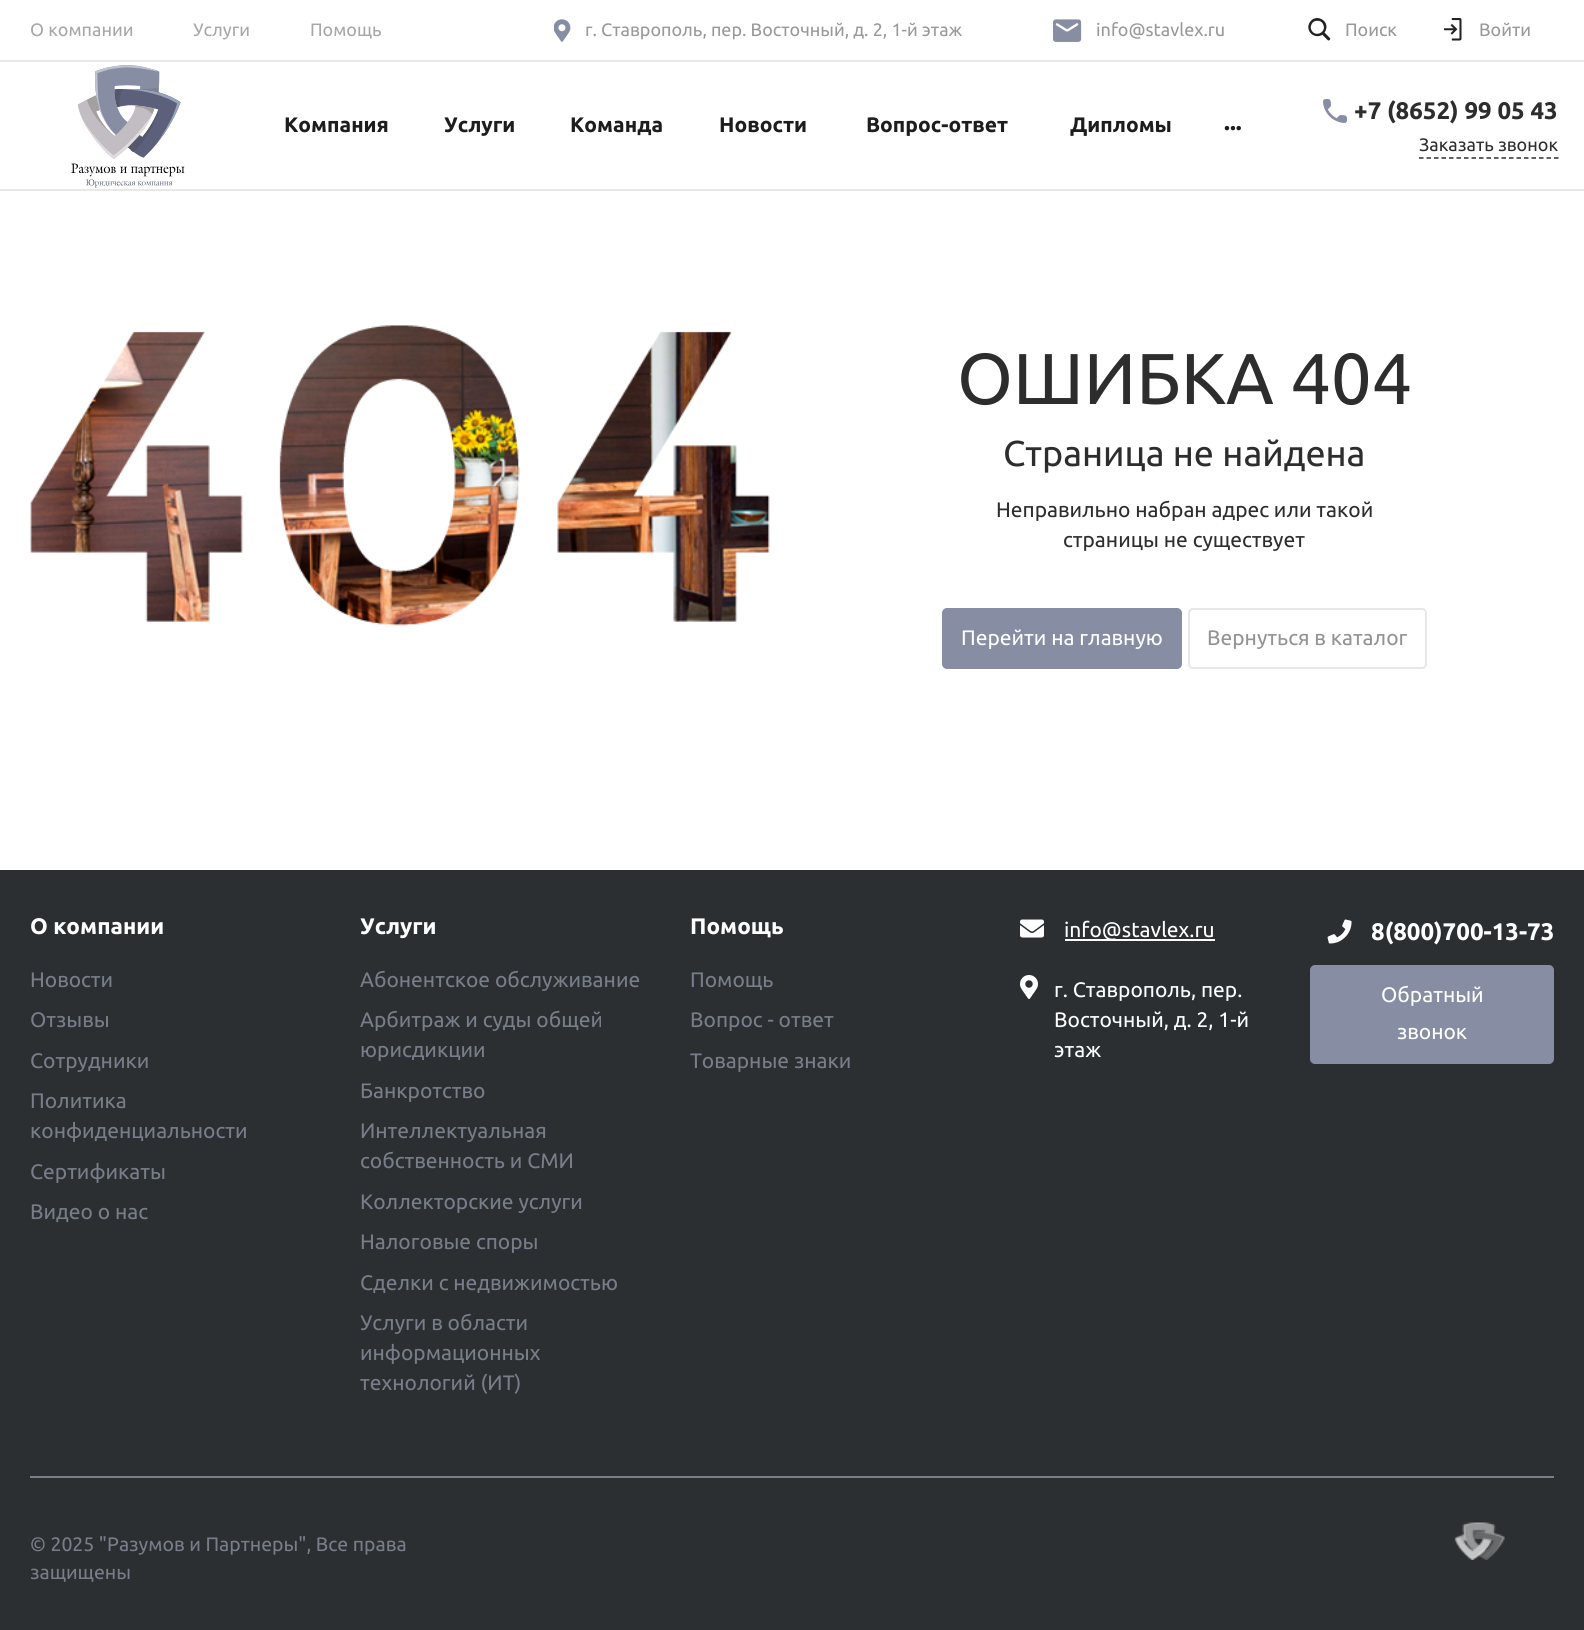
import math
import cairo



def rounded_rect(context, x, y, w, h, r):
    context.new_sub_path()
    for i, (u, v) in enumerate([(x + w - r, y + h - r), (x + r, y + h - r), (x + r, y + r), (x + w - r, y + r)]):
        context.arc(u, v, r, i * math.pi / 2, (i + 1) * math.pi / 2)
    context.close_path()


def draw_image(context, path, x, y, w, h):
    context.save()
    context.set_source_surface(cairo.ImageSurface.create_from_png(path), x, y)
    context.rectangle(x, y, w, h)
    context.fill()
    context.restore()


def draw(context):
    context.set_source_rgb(1, 1, 1)
    context.paint()
    context.set_source_rgb(232 / 255, 232 / 255, 232 / 255)
    context.rectangle(0, 60, 1584, 2)
    context.fill()
    draw_image(context, "images/1.png", 554, 19, 17, 23)
    draw_image(context, "images/2.png", 1053, 19, 29, 23)
    draw_image(context, "images/3.png", 1308, 18, 23, 23)
    draw_image(context, "images/4.png", 1444, 18, 18, 23)
    context.rectangle(0, 189, 1584, 2)
    context.fill()
    draw_image(context, "images/5.png", 71, 65, 114, 123)
    draw_image(context, "images/6.png", 1323, 99, 24, 24)
    context.new_path()
    context.move_to(1419, 158)
    context.line_to(1558.5, 158)
    context.set_source_rgb(45 / 255, 45 / 255, 45 / 255)
    context.set_line_width(1.5)
    context.set_dash([4.5, 3])
    context.stroke()
    draw_image(context, "images/7.png", 30, 325, 740, 301)
    context.set_source_rgb(135 / 255, 141 / 255, 162 / 255)
    rounded_rect(context, 943, 609, 238, 59, 4)
    context.fill_preserve()
    context.set_line_width(2)
    context.set_dash([])
    context.stroke()
    rounded_rect(context, 1189, 609, 237, 59, 4)
    context.set_source_rgb(231 / 255, 231 / 255, 231 / 255)
    context.stroke()
    context.set_source_rgb(43 / 255, 47 / 255, 50 / 255)
    context.rectangle(0, 870, 1584, 760)
    context.fill()
    draw_image(context, "images/8.png", 1020, 919, 24, 19)
    context.set_source_rgb(1, 1, 1)
    context.rectangle(1065, 939, 150, 2)
    context.fill()
    draw_image(context, "images/9.png", 1020, 975, 18, 24)
    draw_image(context, "images/10.png", 1327, 919, 25, 25)
    context.set_source_rgb(135 / 255, 141 / 255, 162 / 255)
    rounded_rect(context, 1311, 966, 242, 97, 4)
    context.fill_preserve()
    context.stroke()
    context.set_source_rgb(119 / 255, 126 / 255, 137 / 255)
    context.rectangle(30, 1476, 1524, 2)
    context.fill()
    draw_image(context, "images/11.png", 1454, 1522, 51, 38)
    context.select_font_face("Ubuntu")
    context.set_font_size(18)
    context.set_source_rgb(167 / 255, 167 / 255, 167 / 255)
    context.move_to(30, 36)
    context.show_text("О компании")
    context.move_to(193, 36)
    context.show_text("Услуги")
    context.move_to(310, 36)
    context.show_text("Помощь")
    context.set_source_rgb(153 / 255, 153 / 255, 153 / 255)
    context.move_to(585, 36)
    context.show_text("г. Ставрополь, пер. Восточный, д. 2, 1-й этаж")
    context.move_to(1096, 36)
    context.show_text("info@stavlex.ru")
    context.move_to(1345, 36)
    context.show_text("Поиск")
    context.move_to(1479, 36)
    context.show_text("Войти")
    context.select_font_face("Ubuntu", cairo.FontSlant.NORMAL, cairo.FontWeight.BOLD)
    context.set_font_size(21)
    context.set_source_rgb(29 / 255, 29 / 255, 29 / 255)
    context.move_to(284, 132)
    context.show_text("Компания")
    context.move_to(444, 132)
    context.show_text("Услуги")
    context.move_to(570, 132)
    context.show_text("Команда")
    context.move_to(719, 132)
    context.show_text("Новости")
    context.move_to(866, 132)
    context.show_text("Вопрос-ответ")
    context.move_to(1070, 132)
    context.show_text("Дипломы")
    context.set_font_size(24)
    context.move_to(1224, 130)
    context.show_text("...")
    context.set_source_rgb(45 / 255, 45 / 255, 45 / 255)
    context.move_to(1354, 119)
    context.show_text("+7 (8652) 99 05 43")
    context.select_font_face("Ubuntu")
    context.set_font_size(18)
    context.move_to(1419, 151)
    context.show_text("Заказать звонок")
    context.set_font_size(72)
    context.move_to(957, 404)
    context.show_text("ОШИБКА 404")
    context.set_font_size(36)
    context.move_to(1003, 466)
    context.show_text("Страница не найдена")
    context.set_font_size(21)
    context.move_to(996, 517)
    context.show_text("Неправильно набран адрес или такой")
    context.move_to(1063, 547)
    context.show_text("страницы не существует")
    context.set_source_rgb(1, 1, 1)
    context.move_to(961, 645)
    context.show_text("Перейти на главную")
    context.set_source_rgb(147 / 255, 147 / 255, 147 / 255)
    context.move_to(1207, 645)
    context.show_text("Вернуться в каталог")
    context.select_font_face("Ubuntu", cairo.FontSlant.NORMAL, cairo.FontWeight.BOLD)
    context.set_font_size(22.5)
    context.set_source_rgb(1, 1, 1)
    context.move_to(30, 934)
    context.show_text("О компании")
    context.select_font_face("Ubuntu")
    context.set_font_size(21)
    context.set_source_rgb(119 / 255, 126 / 255, 137 / 255)
    context.move_to(30, 987)
    context.show_text("Новости")
    context.move_to(30, 1027)
    context.show_text("Отзывы")
    context.move_to(30, 1068)
    context.show_text("Сотрудники")
    context.move_to(30, 1108)
    context.show_text("Политика")
    context.move_to(30, 1138)
    context.show_text("конфиденциальности")
    context.move_to(30, 1179)
    context.show_text("Сертификаты")
    context.move_to(30, 1219)
    context.show_text("Видео о нас")
    context.select_font_face("Ubuntu", cairo.FontSlant.NORMAL, cairo.FontWeight.BOLD)
    context.set_font_size(22.5)
    context.set_source_rgb(1, 1, 1)
    context.move_to(360, 934)
    context.show_text("Услуги")
    context.select_font_face("Ubuntu")
    context.set_font_size(21)
    context.set_source_rgb(119 / 255, 126 / 255, 137 / 255)
    context.move_to(360, 987)
    context.show_text("Абонентское обслуживание")
    context.move_to(360, 1027)
    context.show_text("Арбитраж и суды общей")
    context.move_to(360, 1057)
    context.show_text("юрисдикции")
    context.move_to(360, 1098)
    context.show_text("Банкротство")
    context.move_to(360, 1138)
    context.show_text("Интеллектуальная")
    context.move_to(360, 1168)
    context.show_text("собственность и СМИ")
    context.move_to(360, 1209)
    context.show_text("Коллекторские услуги")
    context.move_to(360, 1249)
    context.show_text("Налоговые споры")
    context.move_to(360, 1290)
    context.show_text("Сделки с недвижимостью")
    context.move_to(360, 1330)
    context.show_text("Услуги в области")
    context.move_to(360, 1360)
    context.show_text("информационных")
    context.move_to(360, 1390)
    context.show_text("технологий (ИТ)")
    context.select_font_face("Ubuntu", cairo.FontSlant.NORMAL, cairo.FontWeight.BOLD)
    context.set_font_size(22.5)
    context.set_source_rgb(1, 1, 1)
    context.move_to(690, 934)
    context.show_text("Помощь")
    context.select_font_face("Ubuntu")
    context.set_font_size(21)
    context.set_source_rgb(119 / 255, 126 / 255, 137 / 255)
    context.move_to(690, 987)
    context.show_text("Помощь")
    context.move_to(690, 1027)
    context.show_text("Вопрос - ответ")
    context.move_to(690, 1068)
    context.show_text("Товарные знаки")
    context.set_source_rgb(1, 1, 1)
    context.move_to(1064, 937)
    context.show_text("info@stavlex.ru")
    context.move_to(1054, 997)
    context.show_text("г. Ставрополь, пер.")
    context.move_to(1054, 1027)
    context.show_text("Восточный, д. 2, 1-й")
    context.move_to(1054, 1057)
    context.show_text("этаж")
    context.select_font_face("Ubuntu", cairo.FontSlant.NORMAL, cairo.FontWeight.BOLD)
    context.set_font_size(24)
    context.move_to(1371, 940)
    context.show_text("8(800)700-13-73")
    context.select_font_face("Ubuntu")
    context.set_font_size(21)
    context.move_to(1381, 1002)
    context.show_text("Обратный")
    context.move_to(1397, 1039)
    context.show_text("звонок")
    context.set_font_size(19.5)
    context.set_source_rgb(119 / 255, 126 / 255, 137 / 255)
    context.move_to(30, 1551)
    context.show_text("© 2025 \"Разумов и Партнеры\", Все права")
    context.move_to(30, 1579)
    context.show_text("защищены")


surface = cairo.ImageSurface(cairo.Format.RGB24, 1584, 1630)
context = cairo.Context(surface)
options = cairo.FontOptions()
options.set_hint_metrics(cairo.HintMetrics.OFF)
options.set_hint_style(cairo.HintStyle.NONE)
context.set_font_options(options)
context.set_miter_limit(4)
draw(context)
surface.write_to_png("out.png")
